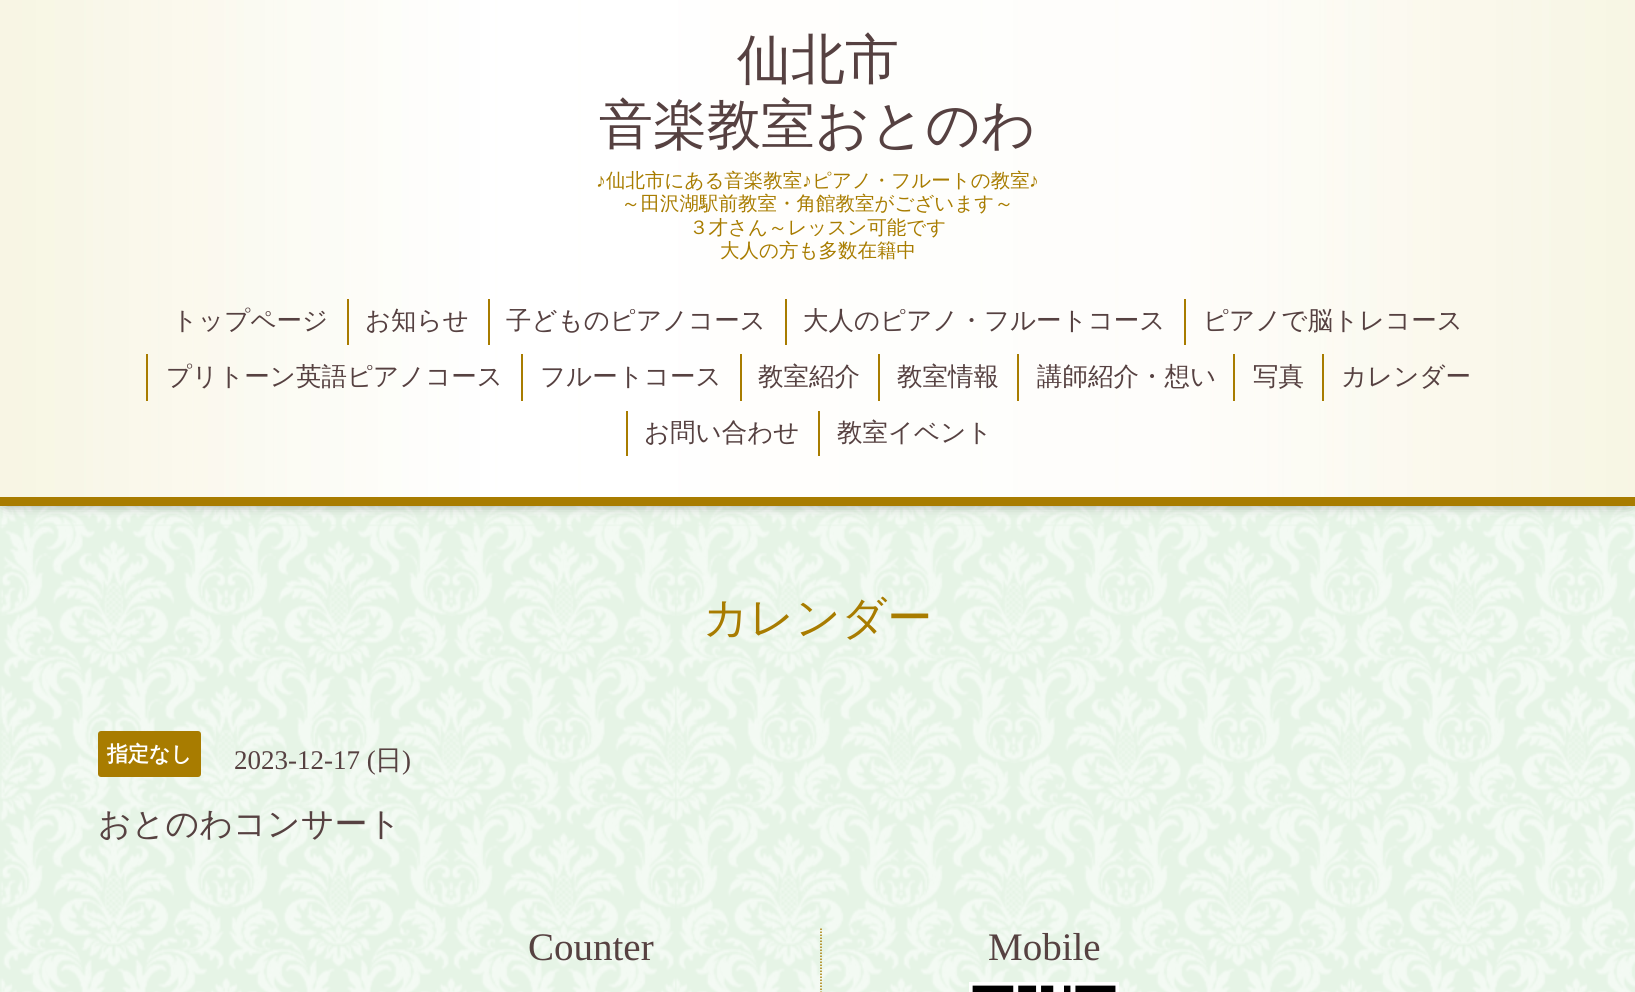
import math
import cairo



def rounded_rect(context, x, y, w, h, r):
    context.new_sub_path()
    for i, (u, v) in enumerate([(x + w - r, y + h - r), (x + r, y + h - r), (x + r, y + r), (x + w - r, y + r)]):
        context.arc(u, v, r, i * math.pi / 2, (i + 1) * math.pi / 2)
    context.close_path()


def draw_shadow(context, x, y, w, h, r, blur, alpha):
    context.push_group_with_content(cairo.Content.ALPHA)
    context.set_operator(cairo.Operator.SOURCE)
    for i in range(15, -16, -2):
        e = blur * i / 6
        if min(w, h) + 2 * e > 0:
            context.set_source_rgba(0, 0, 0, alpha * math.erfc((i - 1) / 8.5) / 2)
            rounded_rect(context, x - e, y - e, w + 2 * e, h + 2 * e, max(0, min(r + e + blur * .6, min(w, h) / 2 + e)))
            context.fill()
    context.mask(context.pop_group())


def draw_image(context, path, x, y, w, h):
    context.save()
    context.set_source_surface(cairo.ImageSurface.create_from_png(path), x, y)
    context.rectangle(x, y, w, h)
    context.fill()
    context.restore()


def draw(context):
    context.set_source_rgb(230 / 255, 244 / 255, 230 / 255)
    context.paint()
    draw_image(context, "images/1.png", 0, 506, 1635, 486)
    context.set_source_rgb(0, 0, 0)
    draw_shadow(context, 6, -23, 1623, 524, 0, 7.5, 0.6)
    draw_image(context, "images/2.png", 0, 0, 1635, 497)
    context.set_source_rgb(168 / 255, 124 / 255, 0)
    context.rectangle(0, 497, 1635, 9)
    context.fill()
    context.rectangle(347, 299, 2, 46)
    context.fill()
    context.rectangle(488, 299, 2, 46)
    context.fill()
    context.rectangle(785, 299, 2, 46)
    context.fill()
    context.rectangle(1184, 299, 2, 46)
    context.fill()
    context.rectangle(146, 354, 2, 47)
    context.fill()
    context.rectangle(521, 354, 2, 47)
    context.fill()
    context.rectangle(740, 354, 2, 47)
    context.fill()
    context.rectangle(878, 354, 2, 47)
    context.fill()
    context.rectangle(1017, 354, 2, 47)
    context.fill()
    context.rectangle(1233, 354, 2, 47)
    context.fill()
    context.rectangle(1322, 354, 2, 47)
    context.fill()
    context.rectangle(626, 411, 2, 45)
    context.fill()
    context.rectangle(818, 411, 2, 45)
    context.fill()
    rounded_rect(context, 98, 731, 103, 46, 3)
    context.fill()
    context.new_path()
    context.move_to(821, 928.5)
    context.line_to(821, 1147.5)
    context.set_line_width(1.5)
    context.set_dash([1.5, 1.5])
    context.stroke()
    draw_image(context, "images/3.png", 969, 982, 150, 10)
    context.select_font_face("WenQuanYi Zen Hei Medium")
    context.set_font_size(54)
    context.set_source_rgb(86 / 255, 65 / 255, 65 / 255)
    context.move_to(737, 78)
    context.show_text("仙北市")
    context.move_to(599, 143)
    context.show_text("音楽教室おとのわ")
    context.select_font_face("Liberation Serif")
    context.set_font_size(19.5)
    context.set_source_rgb(168 / 255, 124 / 255, 0)
    context.move_to(596, 187)
    context.show_text("♪")
    context.select_font_face("WenQuanYi Zen Hei Medium")
    context.move_to(606, 187)
    context.show_text("仙北市にある音楽教室")
    context.select_font_face("Liberation Serif")
    context.move_to(802, 187)
    context.show_text("♪")
    context.select_font_face("WenQuanYi Zen Hei Medium")
    context.move_to(812, 187)
    context.show_text("ピアノ・フルートの教室")
    context.select_font_face("Liberation Serif")
    context.move_to(1029, 187)
    context.show_text("♪")
    context.select_font_face("WenQuanYi Zen Hei Medium")
    context.move_to(621, 210)
    context.show_text("～田沢湖駅前教室・角館教室がございます～")
    context.move_to(689, 234)
    context.show_text("３才さん～レッスン可能です")
    context.move_to(720, 257)
    context.show_text("大人の方も多数在籍中")
    context.set_font_size(25.5)
    context.set_source_rgb(86 / 255, 65 / 255, 65 / 255)
    context.move_to(172, 329)
    context.show_text("トップページ")
    context.move_to(365, 329)
    context.show_text("お知らせ")
    context.move_to(506, 329)
    context.show_text("子どものピアノコース")
    context.move_to(803, 329)
    context.show_text("大人のピアノ・フルートコース")
    context.move_to(1203, 329)
    context.show_text("ピアノで脳トレコース")
    context.move_to(166, 385)
    context.show_text("プリトーン英語ピアノコース")
    context.move_to(540, 385)
    context.show_text("フルートコース")
    context.move_to(758, 385)
    context.show_text("教室紹介")
    context.move_to(897, 385)
    context.show_text("教室情報")
    context.move_to(1037, 385)
    context.show_text("講師紹介・想い")
    context.move_to(1253, 385)
    context.show_text("写真")
    context.move_to(1341, 385)
    context.show_text("カレンダー")
    context.move_to(644, 441)
    context.show_text("お問い合わせ")
    context.move_to(837, 441)
    context.show_text("教室イベント")
    context.set_font_size(45)
    context.set_source_rgb(168 / 255, 124 / 255, 0)
    context.move_to(703, 633)
    context.show_text("カレンダー")
    context.select_font_face("WenQuanYi Zen Hei", cairo.FontSlant.NORMAL, cairo.FontWeight.BOLD)
    context.set_font_size(21)
    context.set_source_rgb(1, 1, 1)
    context.move_to(107, 761)
    context.show_text("指定なし")
    context.select_font_face("Liberation Serif")
    context.set_font_size(27)
    context.set_source_rgb(86 / 255, 65 / 255, 65 / 255)
    context.move_to(234, 769)
    context.show_text("2023-12-17 (")
    context.select_font_face("WenQuanYi Zen Hei Medium")
    context.move_to(375, 769)
    context.show_text("日")
    context.select_font_face("Liberation Serif")
    context.move_to(402, 769)
    context.show_text(")")
    context.select_font_face("WenQuanYi Zen Hei Medium")
    context.set_font_size(33)
    context.move_to(98, 835)
    context.show_text("おとのわコンサート")
    context.select_font_face("Liberation Serif")
    context.set_font_size(39)
    context.move_to(528, 960)
    context.show_text("Counter")
    context.move_to(988, 960)
    context.show_text("Mobile")


surface = cairo.ImageSurface(cairo.Format.RGB24, 1635, 992)
context = cairo.Context(surface)
options = cairo.FontOptions()
options.set_hint_metrics(cairo.HintMetrics.OFF)
options.set_hint_style(cairo.HintStyle.NONE)
context.set_font_options(options)
context.set_miter_limit(4)
draw(context)
surface.write_to_png("out.png")
